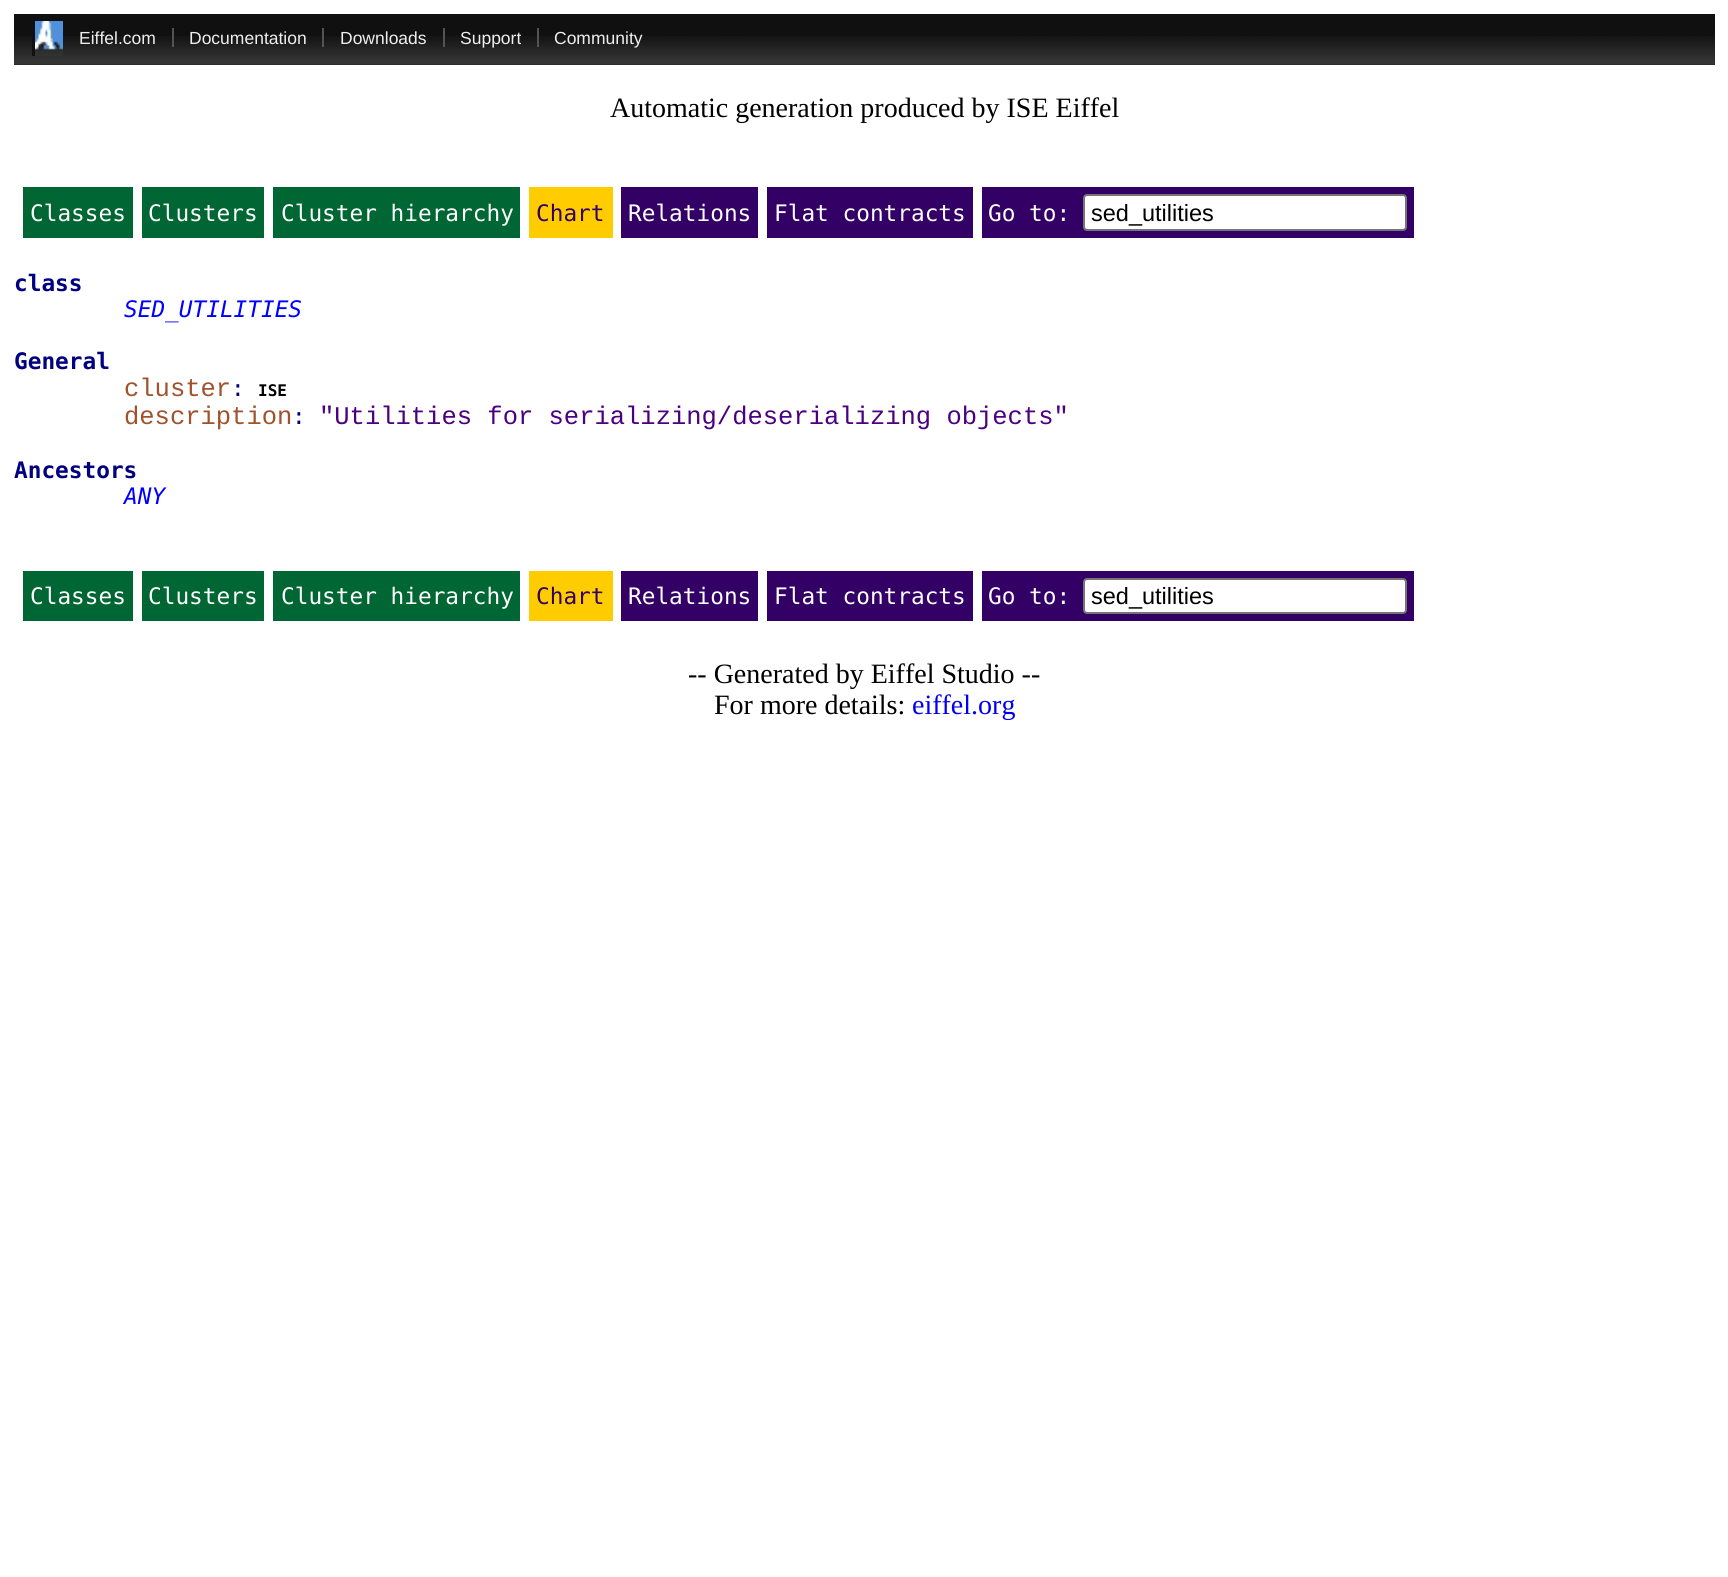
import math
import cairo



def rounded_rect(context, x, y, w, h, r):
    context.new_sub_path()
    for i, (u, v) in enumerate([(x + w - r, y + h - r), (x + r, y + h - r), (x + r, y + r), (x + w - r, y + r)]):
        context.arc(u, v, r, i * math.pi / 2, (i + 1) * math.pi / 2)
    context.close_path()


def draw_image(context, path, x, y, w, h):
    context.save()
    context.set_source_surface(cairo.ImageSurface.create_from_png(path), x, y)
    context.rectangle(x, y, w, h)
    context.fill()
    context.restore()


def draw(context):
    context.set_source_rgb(1, 1, 1)
    context.paint()
    context.set_source_rgb(16 / 255, 16 / 255, 16 / 255)
    context.rectangle(14, 14, 1701, 51)
    context.fill()
    draw_image(context, "images/1.png", 14, 36, 1701, 29)
    context.rectangle(32, 36, 3, 20)
    context.fill()
    draw_image(context, "images/2.png", 35, 21, 28, 35)
    context.set_source_rgb(83 / 255, 83 / 255, 83 / 255)
    context.rectangle(172, 28, 2, 19)
    context.fill()
    context.rectangle(322, 28, 2, 19)
    context.fill()
    context.rectangle(443, 28, 2, 19)
    context.fill()
    context.rectangle(537, 28, 2, 19)
    context.fill()
    context.set_source_rgb(0, 102 / 255, 51 / 255)
    context.rectangle(23, 187, 110, 51)
    context.fill()
    context.rectangle(142, 187, 122, 51)
    context.fill()
    context.rectangle(273, 187, 247, 51)
    context.fill()
    context.set_source_rgb(1, 204 / 255, 0)
    context.rectangle(529, 187, 84, 51)
    context.fill()
    context.set_source_rgb(51 / 255, 0, 102 / 255)
    context.rectangle(621, 187, 137, 51)
    context.fill()
    context.rectangle(767, 187, 206, 51)
    context.fill()
    context.rectangle(982, 187, 432, 51)
    context.fill()
    context.set_source_rgb(1, 1, 1)
    rounded_rect(context, 1084, 195, 322, 35, 3)
    context.fill_preserve()
    context.set_source_rgb(118 / 255, 118 / 255, 118 / 255)
    context.stroke()
    context.set_source_rgb(0, 102 / 255, 51 / 255)
    context.rectangle(23, 571, 110, 50)
    context.fill()
    context.rectangle(142, 571, 122, 50)
    context.fill()
    context.rectangle(273, 571, 247, 50)
    context.fill()
    context.set_source_rgb(1, 204 / 255, 0)
    context.rectangle(529, 571, 84, 50)
    context.fill()
    context.set_source_rgb(51 / 255, 0, 102 / 255)
    context.rectangle(621, 571, 137, 50)
    context.fill()
    context.rectangle(767, 571, 206, 50)
    context.fill()
    context.rectangle(982, 571, 432, 50)
    context.fill()
    context.set_source_rgb(1, 1, 1)
    rounded_rect(context, 1084, 579, 322, 34, 3)
    context.fill_preserve()
    context.set_source_rgb(118 / 255, 118 / 255, 118 / 255)
    context.stroke()
    context.select_font_face("Liberation Sans")
    context.set_font_size(17.5)
    context.set_source_rgb(238 / 255, 238 / 255, 238 / 255)
    context.move_to(79, 44)
    context.show_text("Eiffel.com")
    context.move_to(189, 44)
    context.show_text("Documentation")
    context.move_to(340, 44)
    context.show_text("Downloads")
    context.move_to(460, 44)
    context.show_text("Support")
    context.move_to(554, 44)
    context.show_text("Community")
    context.select_font_face("Liberation Serif")
    context.set_font_size(28)
    context.set_source_rgb(0, 0, 0)
    context.move_to(610, 117)
    context.show_text("Automatic generation produced by ISE Eiffel")
    context.select_font_face("DejaVu Sans Mono")
    context.set_font_size(22.75)
    context.set_source_rgb(1, 1, 1)
    context.move_to(30, 221)
    context.show_text("Classes")
    context.move_to(148, 221)
    context.show_text("Clusters")
    context.move_to(281, 221)
    context.show_text("Cluster hierarchy")
    context.set_source_rgb(51 / 255, 0, 102 / 255)
    context.move_to(536, 221)
    context.show_text("Chart")
    context.set_source_rgb(1, 1, 1)
    context.move_to(628, 221)
    context.show_text("Relations")
    context.move_to(774, 221)
    context.show_text("Flat contracts")
    context.move_to(988, 221)
    context.show_text("Go to:")
    context.select_font_face("Liberation Sans")
    context.set_font_size(23.5)
    context.set_source_rgb(0, 0, 0)
    context.move_to(1091, 221)
    context.show_text("sed_utilities")
    context.select_font_face("DejaVu Sans Mono", cairo.FontSlant.NORMAL, cairo.FontWeight.BOLD)
    context.set_font_size(22.75)
    context.set_source_rgb(0, 0, 128 / 255)
    context.move_to(14, 291)
    context.show_text("class")
    context.select_font_face("DejaVu Sans Mono", cairo.FontSlant.ITALIC)
    context.set_source_rgb(0, 0, 1)
    context.move_to(124, 317)
    context.show_text("SED_UTILITIES")
    context.select_font_face("DejaVu Sans Mono", cairo.FontSlant.NORMAL, cairo.FontWeight.BOLD)
    context.set_source_rgb(0, 0, 128 / 255)
    context.move_to(14, 369)
    context.show_text("General")
    context.select_font_face("Liberation Mono")
    context.set_font_size(25.5)
    context.set_source_rgb(160 / 255, 82 / 255, 45 / 255)
    context.move_to(124, 396)
    context.show_text("cluster")
    context.select_font_face("DejaVu Sans Mono")
    context.set_font_size(22.75)
    context.set_source_rgb(0, 0, 128 / 255)
    context.move_to(231, 396)
    context.show_text(":")
    context.select_font_face("DejaVu Sans Mono", cairo.FontSlant.NORMAL, cairo.FontWeight.BOLD)
    context.set_font_size(16)
    context.set_source_rgb(0, 0, 0)
    context.move_to(258, 396)
    context.show_text("ISE")
    context.select_font_face("Liberation Mono")
    context.set_font_size(25.5)
    context.set_source_rgb(160 / 255, 82 / 255, 45 / 255)
    context.move_to(124, 424)
    context.show_text("description")
    context.select_font_face("DejaVu Sans Mono")
    context.set_font_size(22.75)
    context.set_source_rgb(0, 0, 128 / 255)
    context.move_to(292, 424)
    context.show_text(":")
    context.select_font_face("Liberation Mono")
    context.set_font_size(25.5)
    context.set_source_rgb(75 / 255, 0, 130 / 255)
    context.move_to(319, 424)
    context.show_text("\"Utilities for serializing/deserializing objects\"")
    context.select_font_face("DejaVu Sans Mono", cairo.FontSlant.NORMAL, cairo.FontWeight.BOLD)
    context.set_font_size(22.75)
    context.set_source_rgb(0, 0, 128 / 255)
    context.move_to(14, 478)
    context.show_text("Ancestors")
    context.select_font_face("DejaVu Sans Mono", cairo.FontSlant.ITALIC)
    context.set_source_rgb(0, 0, 1)
    context.move_to(124, 504)
    context.show_text("ANY")
    context.select_font_face("DejaVu Sans Mono")
    context.set_source_rgb(1, 1, 1)
    context.move_to(30, 604)
    context.show_text("Classes")
    context.move_to(148, 604)
    context.show_text("Clusters")
    context.move_to(281, 604)
    context.show_text("Cluster hierarchy")
    context.set_source_rgb(51 / 255, 0, 102 / 255)
    context.move_to(536, 604)
    context.show_text("Chart")
    context.set_source_rgb(1, 1, 1)
    context.move_to(628, 604)
    context.show_text("Relations")
    context.move_to(774, 604)
    context.show_text("Flat contracts")
    context.move_to(988, 604)
    context.show_text("Go to:")
    context.select_font_face("Liberation Sans")
    context.set_font_size(23.5)
    context.set_source_rgb(0, 0, 0)
    context.move_to(1091, 604)
    context.show_text("sed_utilities")
    context.select_font_face("Liberation Serif")
    context.set_font_size(28)
    context.move_to(688, 683)
    context.show_text("-- Generated by Eiffel Studio --")
    context.move_to(714, 714)
    context.show_text("For more details:")
    context.set_source_rgb(0, 0, 238 / 255)
    context.move_to(912, 714)
    context.show_text("eiffel.org")


surface = cairo.ImageSurface(cairo.Format.RGB24, 1728, 1577)
context = cairo.Context(surface)
options = cairo.FontOptions()
options.set_hint_metrics(cairo.HintMetrics.OFF)
options.set_hint_style(cairo.HintStyle.NONE)
context.set_font_options(options)
context.set_miter_limit(4)
draw(context)
surface.write_to_png("out.png")
